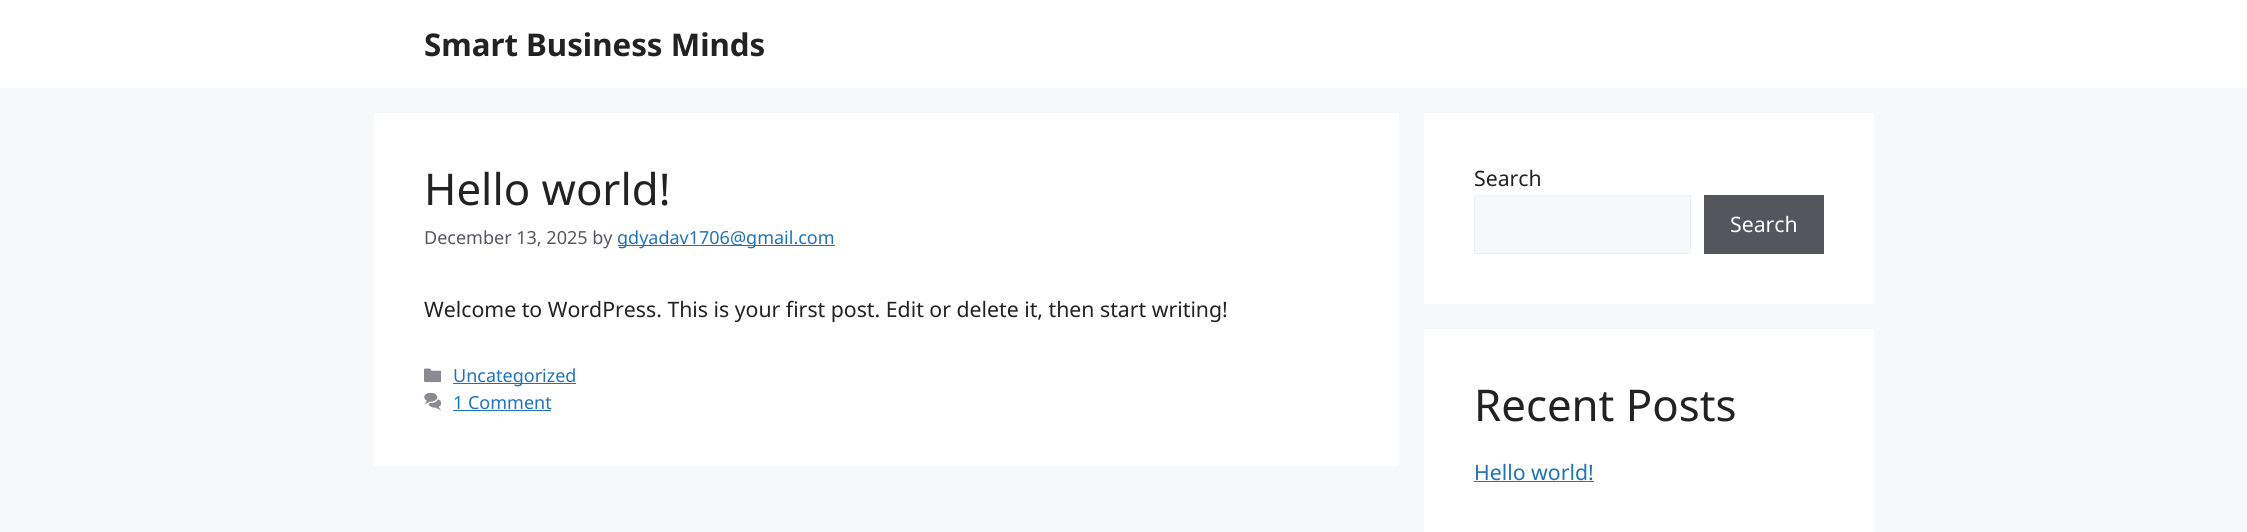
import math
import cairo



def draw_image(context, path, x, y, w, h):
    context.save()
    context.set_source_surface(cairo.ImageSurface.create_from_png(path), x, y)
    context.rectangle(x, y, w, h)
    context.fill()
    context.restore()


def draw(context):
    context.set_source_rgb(247 / 255, 248 / 255, 249 / 255)
    context.paint()
    context.set_source_rgb(1, 1, 1)
    context.rectangle(0, 0, 2247, 88)
    context.fill()
    context.rectangle(374, 113, 1025, 353)
    context.fill()
    context.set_source_rgb(30 / 255, 115 / 255, 190 / 255)
    context.rectangle(618, 245, 217, 1)
    context.fill()
    draw_image(context, "images/1.png", 424, 368, 17, 15)
    context.rectangle(453, 383, 123, 1)
    context.fill()
    draw_image(context, "images/2.png", 424, 393, 17, 18)
    context.rectangle(453, 410, 98, 1)
    context.fill()
    context.set_source_rgb(1, 1, 1)
    context.rectangle(1424, 113, 450, 191)
    context.fill()
    context.set_source_rgb(247 / 255, 248 / 255, 249 / 255)
    context.rectangle(1474.5, 195.5, 216, 58)
    context.fill_preserve()
    context.set_source_rgb(240 / 255, 240 / 255, 240 / 255)
    context.set_line_width(1)
    context.stroke()
    context.set_source_rgb(85 / 255, 85 / 255, 94 / 255)
    context.rectangle(1704, 195, 120, 59)
    context.fill()
    context.set_source_rgb(1, 1, 1)
    context.rectangle(1424, 329, 450, 203)
    context.fill()
    context.set_source_rgb(30 / 255, 115 / 255, 190 / 255)
    context.rectangle(1474, 481, 120, 1)
    context.fill()
    context.select_font_face("Noto Sans", cairo.FontSlant.NORMAL, cairo.FontWeight.BOLD)
    context.set_font_size(31.25)
    context.set_source_rgb(34 / 255, 34 / 255, 34 / 255)
    context.move_to(424, 56)
    context.show_text("Smart Business Minds")
    context.select_font_face("Noto Sans")
    context.set_font_size(43.75)
    context.move_to(424, 205)
    context.show_text("Hello world!")
    context.set_font_size(18)
    context.set_source_rgb(87 / 255, 87 / 255, 96 / 255)
    context.move_to(424, 244)
    context.show_text("December 13, 2025 by")
    context.set_source_rgb(30 / 255, 115 / 255, 190 / 255)
    context.move_to(617, 244)
    context.show_text("gdyadav1706@gmail.com")
    context.set_font_size(21.25)
    context.set_source_rgb(34 / 255, 34 / 255, 34 / 255)
    context.move_to(424, 317)
    context.show_text("Welcome to WordPress. This is your first post. Edit or delete it, then start writing!")
    context.set_font_size(18)
    context.set_source_rgb(30 / 255, 115 / 255, 190 / 255)
    context.move_to(453, 382)
    context.show_text("Uncategorized")
    context.move_to(453, 409)
    context.show_text("1 Comment")
    context.set_font_size(21.25)
    context.set_source_rgb(34 / 255, 34 / 255, 34 / 255)
    context.move_to(1474, 186)
    context.show_text("Search")
    context.set_source_rgb(1, 1, 1)
    context.move_to(1730, 232)
    context.show_text("Search")
    context.set_font_size(43.75)
    context.set_source_rgb(34 / 255, 34 / 255, 34 / 255)
    context.move_to(1474, 421)
    context.show_text("Recent Posts")
    context.set_font_size(21.25)
    context.set_source_rgb(30 / 255, 115 / 255, 190 / 255)
    context.move_to(1474, 480)
    context.show_text("Hello world!")


surface = cairo.ImageSurface(cairo.Format.RGB24, 2247, 532)
context = cairo.Context(surface)
options = cairo.FontOptions()
options.set_hint_metrics(cairo.HintMetrics.OFF)
options.set_hint_style(cairo.HintStyle.NONE)
context.set_font_options(options)
context.set_miter_limit(4)
draw(context)
surface.write_to_png("out.png")
